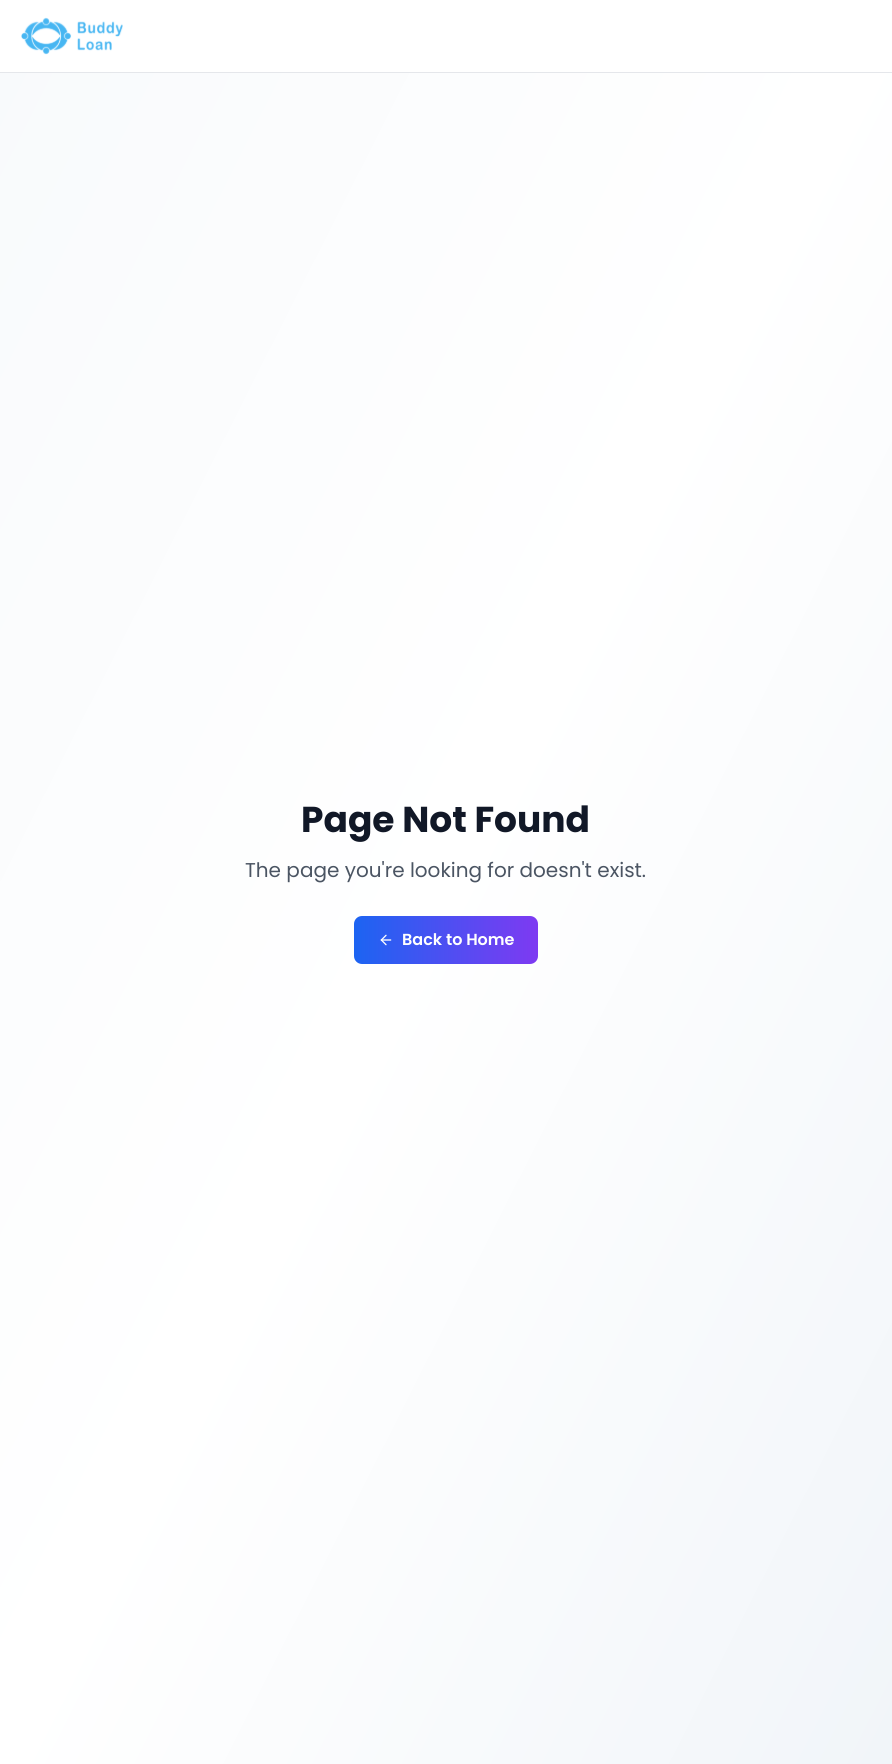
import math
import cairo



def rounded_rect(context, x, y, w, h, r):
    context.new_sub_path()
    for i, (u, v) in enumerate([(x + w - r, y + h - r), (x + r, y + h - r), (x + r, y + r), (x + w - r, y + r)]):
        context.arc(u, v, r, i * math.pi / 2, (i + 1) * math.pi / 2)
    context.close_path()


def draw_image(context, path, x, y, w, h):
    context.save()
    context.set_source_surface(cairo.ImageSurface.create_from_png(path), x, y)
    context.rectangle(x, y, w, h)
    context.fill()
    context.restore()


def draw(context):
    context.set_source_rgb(1, 1, 1)
    context.paint()
    context.set_source_rgb(229 / 255, 231 / 255, 235 / 255)
    context.rectangle(0, 72, 892, 1)
    context.fill()
    draw_image(context, "images/1.png", 21, 17, 102, 38)
    gradient = cairo.LinearGradient(-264, 523, 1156, 1241)
    gradient.add_color_stop_rgba(0, 248 / 255, 250 / 255, 252 / 255, 1)
    gradient.add_color_stop_rgba(0.5, 1, 1, 1, 1)
    gradient.add_color_stop_rgba(1, 241 / 255, 245 / 255, 249 / 255, 1)
    context.set_source(gradient)
    context.rectangle(0, 73, 892, 1691)
    context.fill()
    gradient = cairo.LinearGradient(354, 940, 538, 940)
    gradient.add_color_stop_rgba(0, 28 / 255, 100 / 255, 242 / 255, 1)
    gradient.add_color_stop_rgba(1, 126 / 255, 58 / 255, 242 / 255, 1)
    context.set_source(gradient)
    rounded_rect(context, 354, 916, 184, 48, 8)
    context.fill()
    draw_image(context, "images/2.png", 380, 934, 12, 12)
    context.select_font_face("Poppins", cairo.FontSlant.NORMAL, cairo.FontWeight.BOLD)
    context.set_font_size(36)
    context.set_source_rgb(17 / 255, 24 / 255, 39 / 255)
    context.move_to(301, 832)
    context.show_text("Page Not Found")
    context.select_font_face("Poppins")
    context.set_font_size(20)
    context.set_source_rgb(75 / 255, 85 / 255, 99 / 255)
    context.move_to(245, 877)
    context.show_text("The page you're looking for doesn't exist.")
    context.select_font_face("Poppins SemiBold")
    context.set_font_size(16)
    context.set_source_rgb(1, 1, 1)
    context.move_to(402, 945)
    context.show_text("Back to Home")


surface = cairo.ImageSurface(cairo.Format.RGB24, 892, 1764)
context = cairo.Context(surface)
options = cairo.FontOptions()
options.set_hint_metrics(cairo.HintMetrics.OFF)
options.set_hint_style(cairo.HintStyle.NONE)
context.set_font_options(options)
context.set_miter_limit(4)
draw(context)
surface.write_to_png("out.png")
